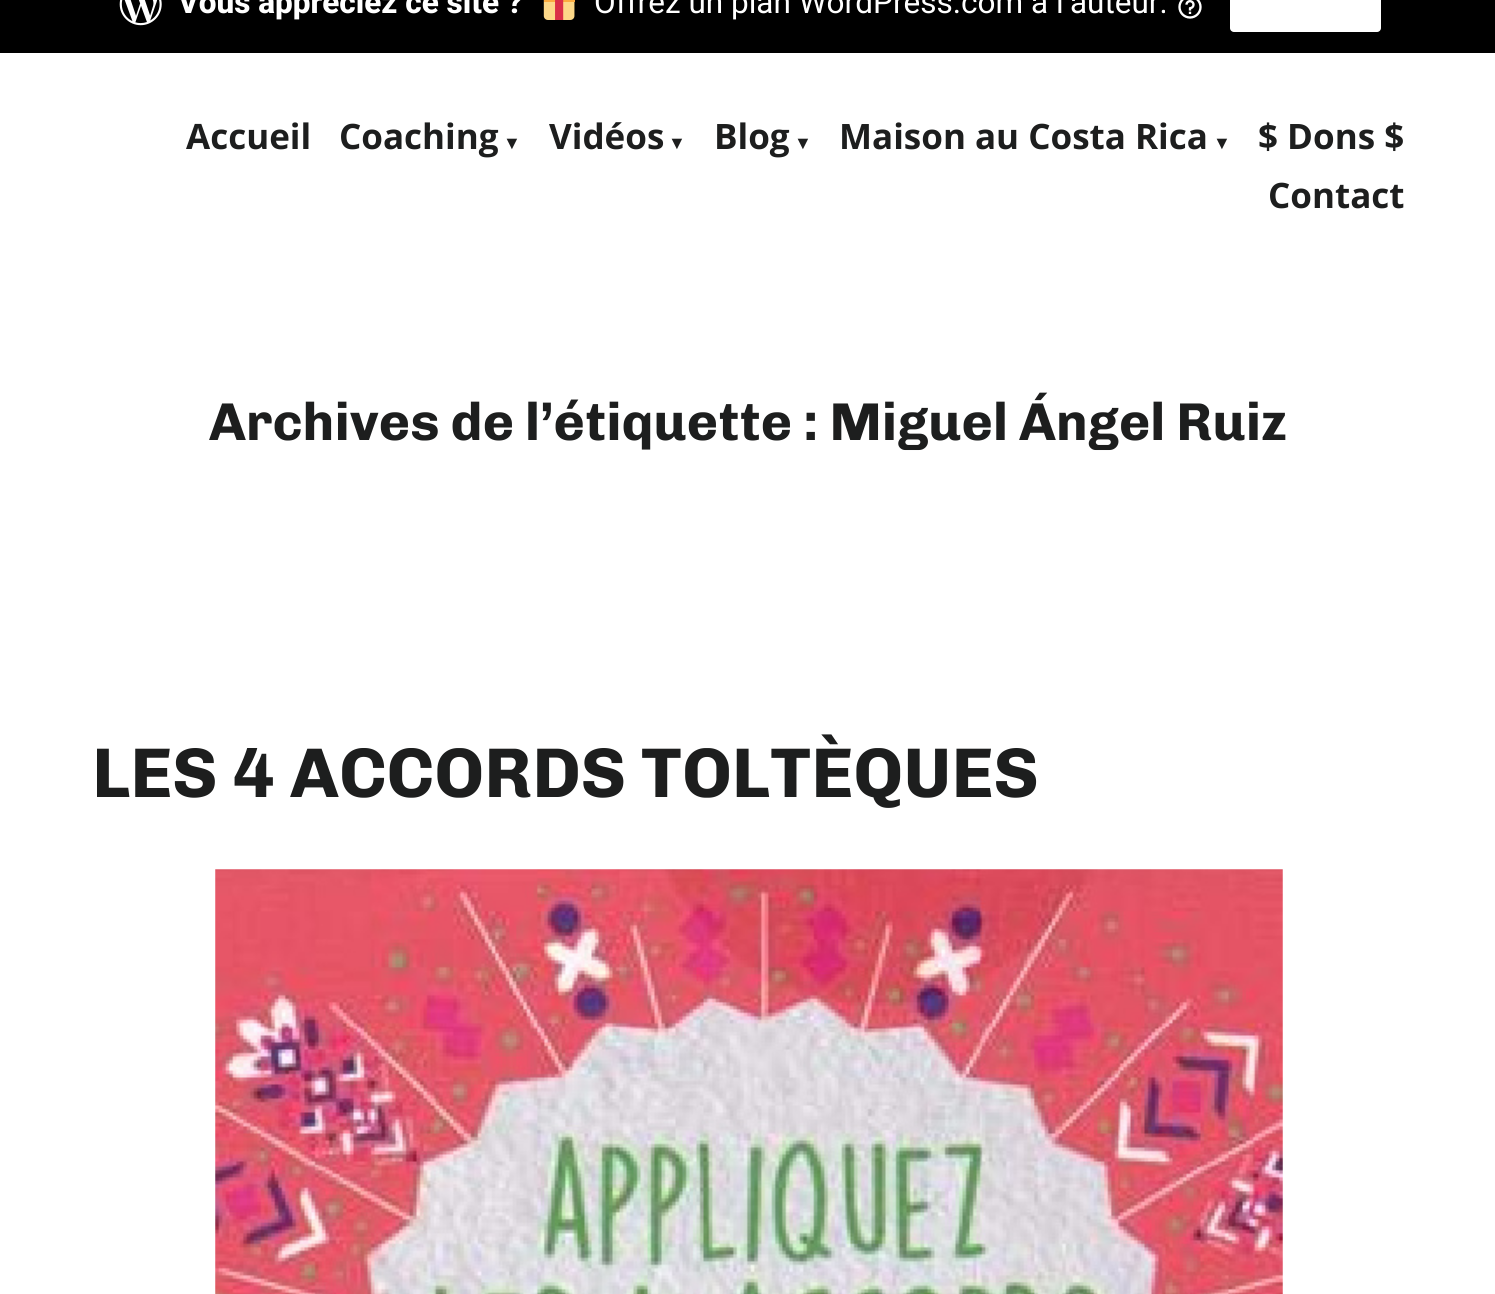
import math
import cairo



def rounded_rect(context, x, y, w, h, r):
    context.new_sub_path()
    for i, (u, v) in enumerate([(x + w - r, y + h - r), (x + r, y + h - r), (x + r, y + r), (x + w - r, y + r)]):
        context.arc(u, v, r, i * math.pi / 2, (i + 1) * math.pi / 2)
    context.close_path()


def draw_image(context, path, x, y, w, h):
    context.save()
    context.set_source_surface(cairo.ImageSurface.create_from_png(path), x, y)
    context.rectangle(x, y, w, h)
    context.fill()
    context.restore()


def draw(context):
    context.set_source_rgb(1, 1, 1)
    context.paint()
    context.set_source_rgb(0, 0, 0)
    context.rectangle(0, 0, 1495, 53)
    context.fill()
    draw_image(context, "images/1.png", 119, 0, 43, 26)
    draw_image(context, "images/2.png", 543, 0, 32, 20)
    draw_image(context, "images/3.png", 1178, 0, 24, 19)
    context.set_source_rgb(1, 1, 1)
    rounded_rect(context, 1230, -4, 151, 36, 4)
    context.fill()
    draw_image(context, "images/4.png", 215, 869, 1068, 425)
    context.select_font_face("Roboto ExtraBold")
    context.set_font_size(31.5)
    context.move_to(178, 13)
    context.show_text("Vous appréciez ce site ?")
    context.select_font_face("Roboto")
    context.move_to(594, 13)
    context.show_text("Offrez un plan WordPress.com à l’auteur.")
    context.select_font_face("Open Sans", cairo.FontSlant.NORMAL, cairo.FontWeight.BOLD)
    context.set_font_size(35)
    context.set_source_rgb(29 / 255, 30 / 255, 30 / 255)
    context.move_to(186, 149)
    context.show_text("Accueil")
    context.move_to(339, 149)
    context.show_text("Coaching")
    context.select_font_face("Liberation Serif", cairo.FontSlant.NORMAL, cairo.FontWeight.BOLD)
    context.set_font_size(18)
    context.move_to(503, 149)
    context.show_text("▼")
    context.select_font_face("Open Sans", cairo.FontSlant.NORMAL, cairo.FontWeight.BOLD)
    context.set_font_size(35)
    context.move_to(549, 149)
    context.show_text("Vidéos")
    context.select_font_face("Liberation Serif", cairo.FontSlant.NORMAL, cairo.FontWeight.BOLD)
    context.set_font_size(18)
    context.move_to(668, 149)
    context.show_text("▼")
    context.select_font_face("Open Sans", cairo.FontSlant.NORMAL, cairo.FontWeight.BOLD)
    context.set_font_size(35)
    context.move_to(714, 149)
    context.show_text("Blog")
    context.select_font_face("Liberation Serif", cairo.FontSlant.NORMAL, cairo.FontWeight.BOLD)
    context.set_font_size(18)
    context.move_to(794, 149)
    context.show_text("▼")
    context.select_font_face("Open Sans", cairo.FontSlant.NORMAL, cairo.FontWeight.BOLD)
    context.set_font_size(35)
    context.move_to(839, 149)
    context.show_text("Maison au Costa Rica")
    context.select_font_face("Liberation Serif", cairo.FontSlant.NORMAL, cairo.FontWeight.BOLD)
    context.set_font_size(18)
    context.move_to(1213, 149)
    context.show_text("▼")
    context.select_font_face("Open Sans", cairo.FontSlant.NORMAL, cairo.FontWeight.BOLD)
    context.set_font_size(35)
    context.move_to(1258, 149)
    context.show_text("$ Dons $")
    context.move_to(1268, 208)
    context.show_text("Contact")
    context.select_font_face("Chivo", cairo.FontSlant.NORMAL, cairo.FontWeight.BOLD)
    context.set_font_size(53.25)
    context.move_to(209, 440)
    context.show_text("Archives de l’étiquette : Miguel Ángel Ruiz")
    context.set_font_size(70.4)
    context.move_to(92, 797)
    context.show_text("LES 4 ACCORDS TOLTÈQUES")


surface = cairo.ImageSurface(cairo.Format.RGB24, 1495, 1294)
context = cairo.Context(surface)
options = cairo.FontOptions()
options.set_hint_metrics(cairo.HintMetrics.OFF)
options.set_hint_style(cairo.HintStyle.NONE)
context.set_font_options(options)
context.set_miter_limit(4)
draw(context)
surface.write_to_png("out.png")
